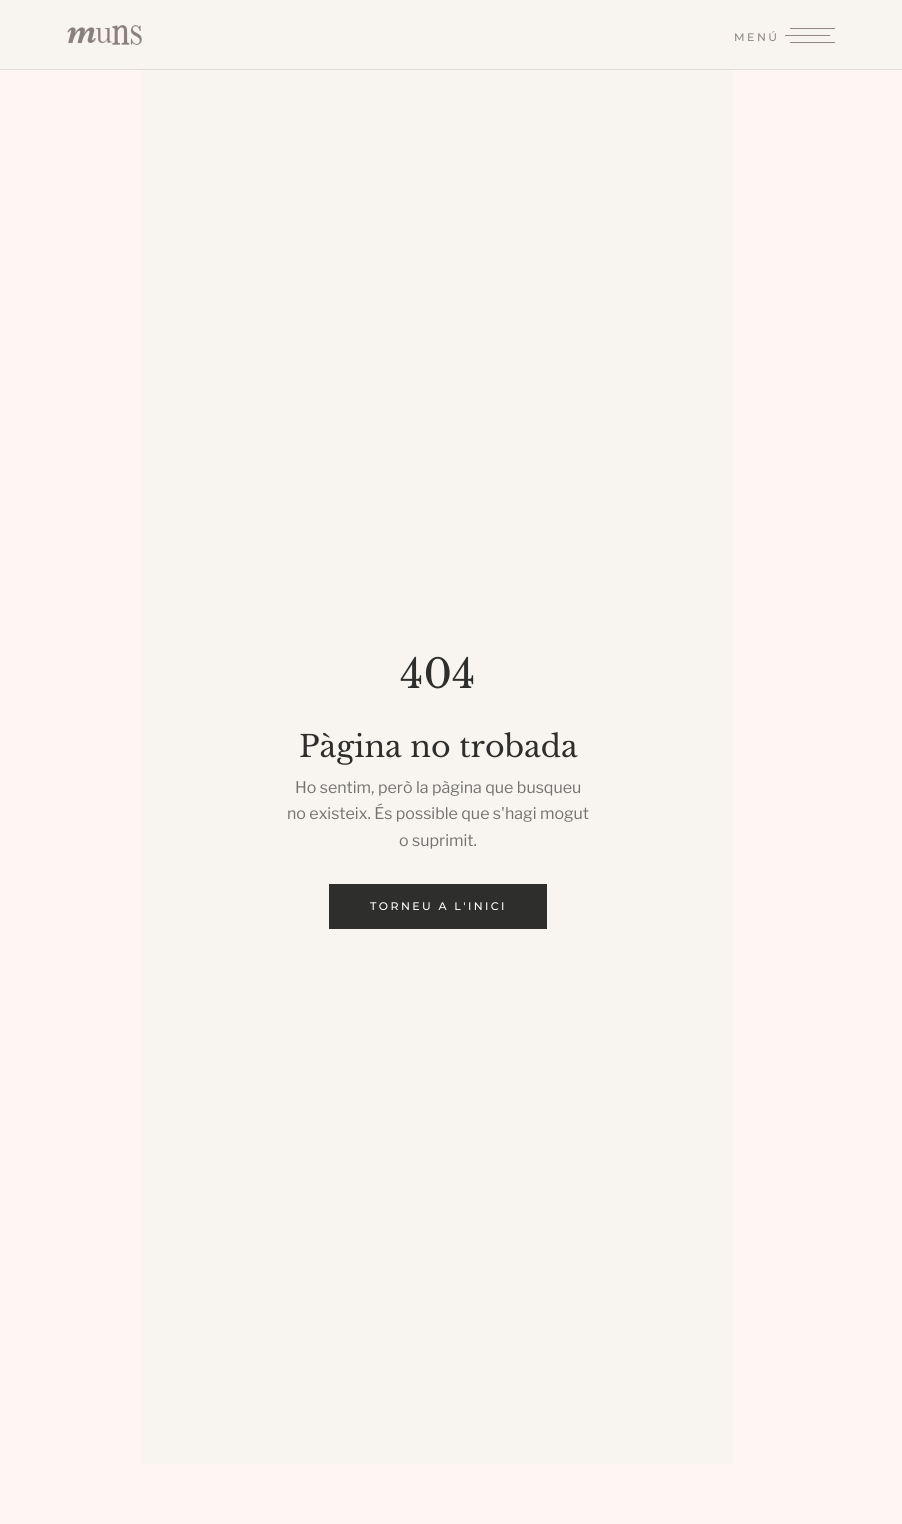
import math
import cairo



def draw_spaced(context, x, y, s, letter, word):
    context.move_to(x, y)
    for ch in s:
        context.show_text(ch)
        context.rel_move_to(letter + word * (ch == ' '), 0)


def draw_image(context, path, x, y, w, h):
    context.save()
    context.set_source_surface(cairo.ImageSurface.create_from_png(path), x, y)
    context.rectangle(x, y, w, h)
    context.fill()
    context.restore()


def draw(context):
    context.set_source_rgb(253 / 255, 246 / 255, 243 / 255)
    context.paint()
    context.set_source_rgb(248 / 255, 245 / 255, 240 / 255)
    context.rectangle(0, 0, 902, 69)
    context.fill()
    context.set_source_rgb(222 / 255, 221 / 255, 218 / 255)
    context.rectangle(0, 69, 902, 1)
    context.fill()
    draw_image(context, "images/1.png", 67, 25, 75, 20)
    context.set_source_rgb(146 / 255, 135 / 255, 130 / 255)
    context.rectangle(790, 28, 45, 1)
    context.fill()
    context.rectangle(785, 35, 45, 1)
    context.fill()
    context.rectangle(790, 42, 45, 1)
    context.fill()
    context.set_source_rgb(248 / 255, 245 / 255, 240 / 255)
    context.rectangle(142, 70, 592, 1394)
    context.fill()
    context.set_source_rgb(46 / 255, 46 / 255, 45 / 255)
    context.rectangle(329, 884, 218, 45)
    context.fill()
    context.select_font_face("Montserrat Medium")
    context.set_font_size(11)
    context.set_source_rgb(146 / 255, 135 / 255, 130 / 255)
    draw_spaced(context, 734, 41, "MENÚ", 2.5, 0)
    context.select_font_face("Libre Baskerville")
    context.set_font_size(40)
    context.set_source_rgb(46 / 255, 46 / 255, 45 / 255)
    context.move_to(400, 688)
    context.show_text("404")
    context.set_font_size(30)
    context.move_to(299, 757)
    context.show_text("Pàgina no trobada")
    context.select_font_face("Libre Franklin")
    context.set_font_size(16)
    context.set_source_rgb(114 / 255, 114 / 255, 114 / 255)
    context.move_to(295, 793)
    context.show_text("Ho sentim, però la pàgina que busqueu")
    context.move_to(287, 819)
    context.show_text("no existeix. És possible que s'hagi mogut")
    context.move_to(399, 846)
    context.show_text("o suprimit.")
    context.select_font_face("Montserrat Medium")
    context.set_font_size(11)
    context.set_source_rgb(1, 1, 1)
    draw_spaced(context, 370, 910, "TORNEU A L'INICI", 2.4, 0)


surface = cairo.ImageSurface(cairo.Format.RGB24, 902, 1524)
context = cairo.Context(surface)
options = cairo.FontOptions()
options.set_hint_metrics(cairo.HintMetrics.OFF)
options.set_hint_style(cairo.HintStyle.NONE)
context.set_font_options(options)
context.set_miter_limit(4)
draw(context)
surface.write_to_png("out.png")
